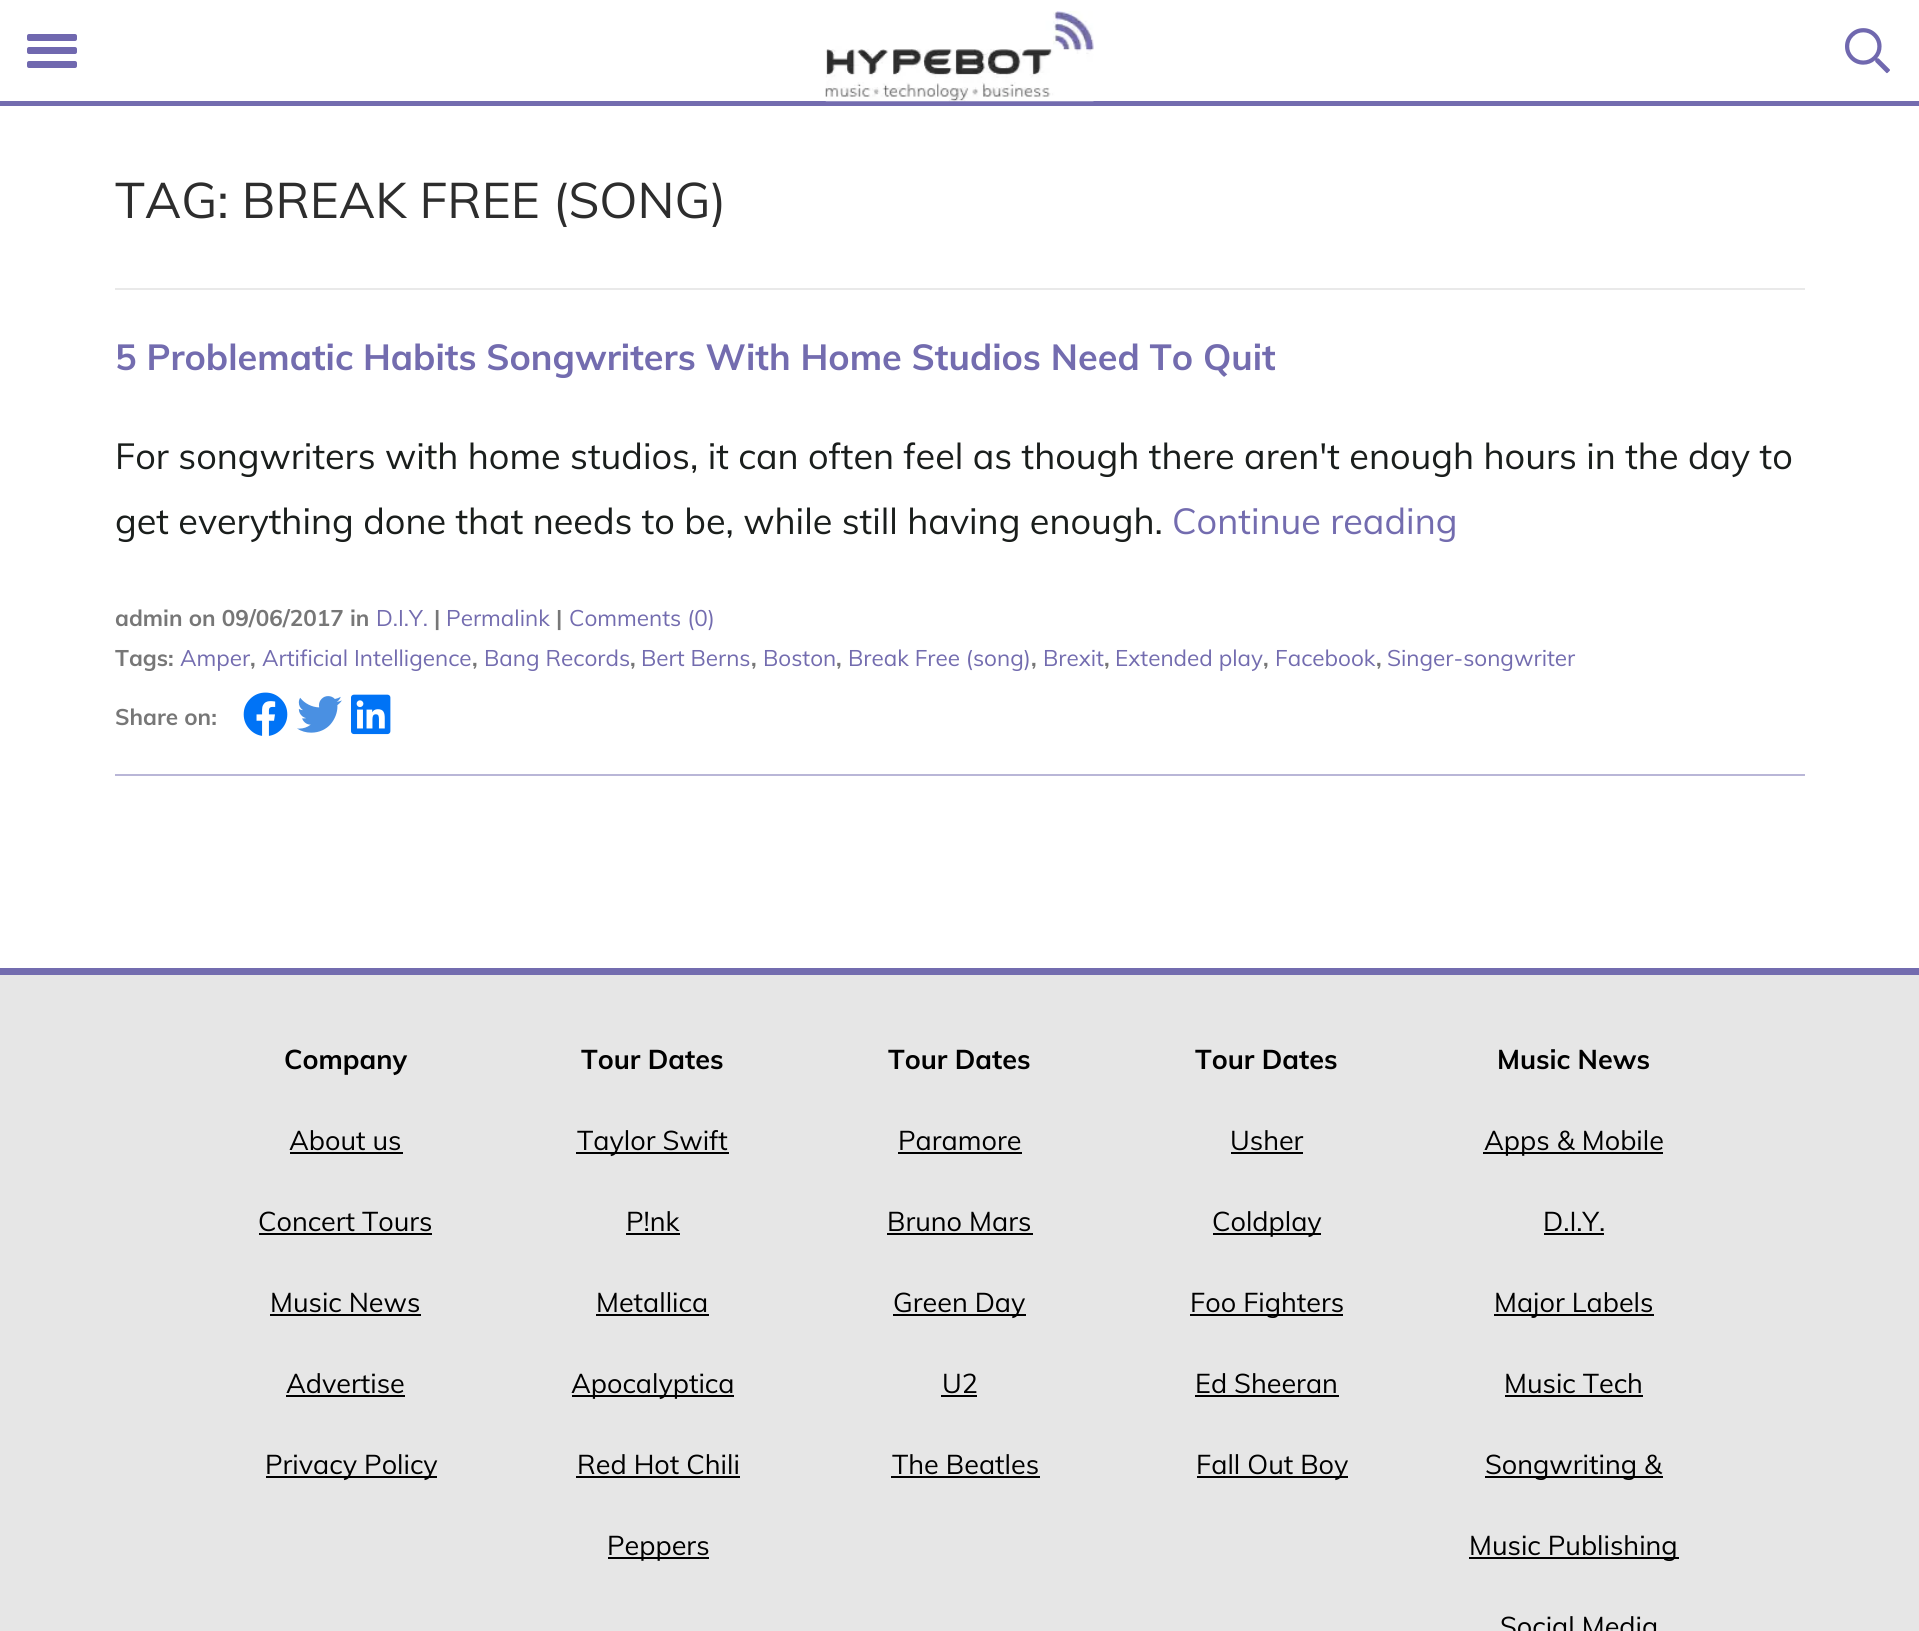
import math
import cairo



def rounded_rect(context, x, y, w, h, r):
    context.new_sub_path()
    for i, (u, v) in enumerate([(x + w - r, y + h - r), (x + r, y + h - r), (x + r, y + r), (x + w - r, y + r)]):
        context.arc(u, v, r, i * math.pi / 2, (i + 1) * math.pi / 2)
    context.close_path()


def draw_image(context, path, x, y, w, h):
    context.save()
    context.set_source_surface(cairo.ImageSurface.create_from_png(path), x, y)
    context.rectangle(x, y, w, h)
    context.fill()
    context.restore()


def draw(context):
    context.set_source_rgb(1, 1, 1)
    context.paint()
    context.set_source_rgb(115 / 255, 108 / 255, 175 / 255)
    context.rectangle(0, 101, 1919, 5)
    context.fill()
    context.set_source_rgb(112 / 255, 104 / 255, 175 / 255)
    rounded_rect(context, 27, 34, 50, 7, 2)
    context.fill()
    rounded_rect(context, 27, 47, 50, 7, 2)
    context.fill()
    rounded_rect(context, 27, 61, 50, 7, 2)
    context.fill()
    draw_image(context, "images/1.png", 825, 11, 269, 91)
    draw_image(context, "images/2.png", 1845, 28, 45, 46)
    context.set_source_rgb(233 / 255, 233 / 255, 233 / 255)
    context.rectangle(115, 288, 1690, 2)
    context.fill()
    context.set_source_rgb(185 / 255, 182 / 255, 215 / 255)
    context.rectangle(115, 774, 1690, 2)
    context.fill()
    draw_image(context, "images/3.png", 243, 692, 45, 44)
    draw_image(context, "images/4.png", 297, 696, 45, 37)
    draw_image(context, "images/5.png", 351, 694, 40, 41)
    context.set_source_rgb(230 / 255, 230 / 255, 230 / 255)
    context.rectangle(0, 975, 1919, 656)
    context.fill()
    context.set_source_rgb(115 / 255, 108 / 255, 175 / 255)
    context.rectangle(0, 968, 1919, 7)
    context.fill()
    context.set_source_rgb(0, 0, 0)
    context.rectangle(290, 1152, 113, 2)
    context.fill()
    context.rectangle(259, 1233, 173, 2)
    context.fill()
    context.rectangle(270, 1314, 151, 2)
    context.fill()
    context.rectangle(286, 1395, 119, 2)
    context.fill()
    context.rectangle(266, 1476, 171, 2)
    context.fill()
    context.rectangle(576, 1152, 153, 2)
    context.fill()
    context.rectangle(626, 1233, 54, 2)
    context.fill()
    context.rectangle(596, 1314, 113, 2)
    context.fill()
    context.rectangle(572, 1395, 162, 2)
    context.fill()
    context.rectangle(576, 1476, 164, 2)
    context.fill()
    context.rectangle(608, 1557, 101, 2)
    context.fill()
    context.rectangle(898, 1152, 124, 2)
    context.fill()
    context.rectangle(887, 1233, 146, 2)
    context.fill()
    context.rectangle(893, 1314, 133, 2)
    context.fill()
    context.rectangle(941, 1395, 36, 2)
    context.fill()
    context.rectangle(891, 1476, 149, 2)
    context.fill()
    context.rectangle(1231, 1152, 72, 2)
    context.fill()
    context.rectangle(1213, 1233, 108, 2)
    context.fill()
    context.rectangle(1190, 1314, 153, 2)
    context.fill()
    context.rectangle(1195, 1395, 144, 2)
    context.fill()
    context.rectangle(1197, 1476, 151, 2)
    context.fill()
    context.rectangle(1483, 1152, 180, 2)
    context.fill()
    context.rectangle(1544, 1233, 60, 2)
    context.fill()
    context.rectangle(1494, 1314, 160, 2)
    context.fill()
    context.rectangle(1505, 1395, 138, 2)
    context.fill()
    context.rectangle(1485, 1476, 178, 2)
    context.fill()
    context.rectangle(1469, 1557, 210, 2)
    context.fill()
    context.select_font_face("Muli")
    context.set_font_size(49.5)
    context.set_source_rgb(45 / 255, 45 / 255, 45 / 255)
    context.move_to(115, 218)
    context.show_text("TAG: BREAK FREE (SONG)")
    context.select_font_face("Muli", cairo.FontSlant.NORMAL, cairo.FontWeight.BOLD)
    context.set_font_size(36)
    context.set_source_rgb(115 / 255, 108 / 255, 175 / 255)
    context.move_to(115, 370)
    context.show_text("5 Problematic Habits Songwriters With Home Studios Need To Quit")
    context.select_font_face("Muli")
    context.set_source_rgb(26 / 255, 30 / 255, 28 / 255)
    context.move_to(115, 469)
    context.show_text("For songwriters with home studios, it can often feel as though there aren't enough hours in the day to")
    context.move_to(115, 534)
    context.show_text("get everything done that needs to be, while still having enough.")
    context.set_source_rgb(115 / 255, 108 / 255, 175 / 255)
    context.move_to(1172, 534)
    context.show_text("Continue reading")
    context.select_font_face("Muli", cairo.FontSlant.NORMAL, cairo.FontWeight.BOLD)
    context.set_font_size(22.5)
    context.set_source_rgb(119 / 255, 119 / 255, 119 / 255)
    context.move_to(115, 626)
    context.show_text("admin on 09/06/2017 in")
    context.select_font_face("Muli")
    context.set_source_rgb(115 / 255, 108 / 255, 175 / 255)
    context.move_to(376, 626)
    context.show_text("D.I.Y.")
    context.select_font_face("Muli", cairo.FontSlant.NORMAL, cairo.FontWeight.BOLD)
    context.set_source_rgb(119 / 255, 119 / 255, 119 / 255)
    context.move_to(434, 626)
    context.show_text("|")
    context.select_font_face("Muli")
    context.set_source_rgb(115 / 255, 108 / 255, 175 / 255)
    context.move_to(446, 626)
    context.show_text("Permalink")
    context.select_font_face("Muli", cairo.FontSlant.NORMAL, cairo.FontWeight.BOLD)
    context.set_source_rgb(119 / 255, 119 / 255, 119 / 255)
    context.move_to(556, 626)
    context.show_text("|")
    context.select_font_face("Muli")
    context.set_source_rgb(115 / 255, 108 / 255, 175 / 255)
    context.move_to(569, 626)
    context.show_text("Comments (0)")
    context.select_font_face("Muli", cairo.FontSlant.NORMAL, cairo.FontWeight.BOLD)
    context.set_source_rgb(119 / 255, 119 / 255, 119 / 255)
    context.move_to(115, 666)
    context.show_text("Tags:")
    context.select_font_face("Muli")
    context.set_source_rgb(115 / 255, 108 / 255, 175 / 255)
    context.move_to(180, 666)
    context.show_text("Amper")
    context.select_font_face("Muli", cairo.FontSlant.NORMAL, cairo.FontWeight.BOLD)
    context.set_source_rgb(119 / 255, 119 / 255, 119 / 255)
    context.move_to(250, 666)
    context.show_text(",")
    context.select_font_face("Muli")
    context.set_source_rgb(115 / 255, 108 / 255, 175 / 255)
    context.move_to(262, 666)
    context.show_text("Artificial Intelligence")
    context.select_font_face("Muli", cairo.FontSlant.NORMAL, cairo.FontWeight.BOLD)
    context.set_source_rgb(119 / 255, 119 / 255, 119 / 255)
    context.move_to(472, 666)
    context.show_text(",")
    context.select_font_face("Muli")
    context.set_source_rgb(115 / 255, 108 / 255, 175 / 255)
    context.move_to(484, 666)
    context.show_text("Bang Records")
    context.select_font_face("Muli", cairo.FontSlant.NORMAL, cairo.FontWeight.BOLD)
    context.set_source_rgb(119 / 255, 119 / 255, 119 / 255)
    context.move_to(630, 666)
    context.show_text(",")
    context.select_font_face("Muli")
    context.set_source_rgb(115 / 255, 108 / 255, 175 / 255)
    context.move_to(641, 666)
    context.show_text("Bert Berns")
    context.select_font_face("Muli", cairo.FontSlant.NORMAL, cairo.FontWeight.BOLD)
    context.set_source_rgb(119 / 255, 119 / 255, 119 / 255)
    context.move_to(751, 666)
    context.show_text(",")
    context.select_font_face("Muli")
    context.set_source_rgb(115 / 255, 108 / 255, 175 / 255)
    context.move_to(763, 666)
    context.show_text("Boston")
    context.select_font_face("Muli", cairo.FontSlant.NORMAL, cairo.FontWeight.BOLD)
    context.set_source_rgb(119 / 255, 119 / 255, 119 / 255)
    context.move_to(836, 666)
    context.show_text(",")
    context.select_font_face("Muli")
    context.set_source_rgb(115 / 255, 108 / 255, 175 / 255)
    context.move_to(848, 666)
    context.show_text("Break Free (song)")
    context.select_font_face("Muli", cairo.FontSlant.NORMAL, cairo.FontWeight.BOLD)
    context.set_source_rgb(119 / 255, 119 / 255, 119 / 255)
    context.move_to(1031, 666)
    context.show_text(",")
    context.select_font_face("Muli")
    context.set_source_rgb(115 / 255, 108 / 255, 175 / 255)
    context.move_to(1043, 666)
    context.show_text("Brexit")
    context.select_font_face("Muli", cairo.FontSlant.NORMAL, cairo.FontWeight.BOLD)
    context.set_source_rgb(119 / 255, 119 / 255, 119 / 255)
    context.move_to(1104, 666)
    context.show_text(",")
    context.select_font_face("Muli")
    context.set_source_rgb(115 / 255, 108 / 255, 175 / 255)
    context.move_to(1115, 666)
    context.show_text("Extended play")
    context.select_font_face("Muli", cairo.FontSlant.NORMAL, cairo.FontWeight.BOLD)
    context.set_source_rgb(119 / 255, 119 / 255, 119 / 255)
    context.move_to(1263, 666)
    context.show_text(",")
    context.select_font_face("Muli")
    context.set_source_rgb(115 / 255, 108 / 255, 175 / 255)
    context.move_to(1275, 666)
    context.show_text("Facebook")
    context.select_font_face("Muli", cairo.FontSlant.NORMAL, cairo.FontWeight.BOLD)
    context.set_source_rgb(119 / 255, 119 / 255, 119 / 255)
    context.move_to(1376, 666)
    context.show_text(",")
    context.select_font_face("Muli")
    context.set_source_rgb(115 / 255, 108 / 255, 175 / 255)
    context.move_to(1387, 666)
    context.show_text("Singer-songwriter")
    context.select_font_face("Muli", cairo.FontSlant.NORMAL, cairo.FontWeight.BOLD)
    context.set_source_rgb(119 / 255, 119 / 255, 119 / 255)
    context.move_to(115, 725)
    context.show_text("Share on:")
    context.set_font_size(27)
    context.set_source_rgb(0, 0, 0)
    context.move_to(284, 1069)
    context.show_text("Company")
    context.select_font_face("Muli")
    context.move_to(289, 1150)
    context.show_text("About us")
    context.move_to(258, 1231)
    context.show_text("Concert Tours")
    context.move_to(270, 1312)
    context.show_text("Music News")
    context.move_to(286, 1393)
    context.show_text("Advertise")
    context.move_to(265, 1474)
    context.show_text("Privacy Policy")
    context.select_font_face("Muli", cairo.FontSlant.NORMAL, cairo.FontWeight.BOLD)
    context.move_to(581, 1069)
    context.show_text("Tour Dates")
    context.select_font_face("Muli")
    context.move_to(577, 1150)
    context.show_text("Taylor Swift")
    context.move_to(626, 1231)
    context.show_text("P!nk")
    context.move_to(596, 1312)
    context.show_text("Metallica")
    context.move_to(571, 1393)
    context.show_text("Apocalyptica")
    context.move_to(577, 1474)
    context.show_text("Red Hot Chili")
    context.move_to(607, 1555)
    context.show_text("Peppers")
    context.select_font_face("Muli", cairo.FontSlant.NORMAL, cairo.FontWeight.BOLD)
    context.move_to(888, 1069)
    context.show_text("Tour Dates")
    context.select_font_face("Muli")
    context.move_to(898, 1150)
    context.show_text("Paramore")
    context.move_to(887, 1231)
    context.show_text("Bruno Mars")
    context.move_to(893, 1312)
    context.show_text("Green Day")
    context.move_to(942, 1393)
    context.show_text("U2")
    context.move_to(892, 1474)
    context.show_text("The Beatles")
    context.select_font_face("Muli", cairo.FontSlant.NORMAL, cairo.FontWeight.BOLD)
    context.move_to(1195, 1069)
    context.show_text("Tour Dates")
    context.select_font_face("Muli")
    context.move_to(1230, 1150)
    context.show_text("Usher")
    context.move_to(1212, 1231)
    context.show_text("Coldplay")
    context.move_to(1190, 1312)
    context.show_text("Foo Fighters")
    context.move_to(1195, 1393)
    context.show_text("Ed Sheeran")
    context.move_to(1196, 1474)
    context.show_text("Fall Out Boy")
    context.select_font_face("Muli", cairo.FontSlant.NORMAL, cairo.FontWeight.BOLD)
    context.move_to(1497, 1069)
    context.show_text("Music News")
    context.select_font_face("Muli")
    context.move_to(1484, 1150)
    context.show_text("Apps & Mobile")
    context.move_to(1543, 1231)
    context.show_text("D.I.Y.")
    context.move_to(1494, 1312)
    context.show_text("Major Labels")
    context.move_to(1504, 1393)
    context.show_text("Music Tech")
    context.move_to(1485, 1474)
    context.show_text("Songwriting &")
    context.move_to(1469, 1555)
    context.show_text("Music Publishing")
    context.move_to(1500, 1636)
    context.show_text("Social Media")


surface = cairo.ImageSurface(cairo.Format.RGB24, 1919, 1631)
context = cairo.Context(surface)
options = cairo.FontOptions()
options.set_hint_metrics(cairo.HintMetrics.OFF)
options.set_hint_style(cairo.HintStyle.NONE)
context.set_font_options(options)
context.set_miter_limit(4)
draw(context)
surface.write_to_png("out.png")
